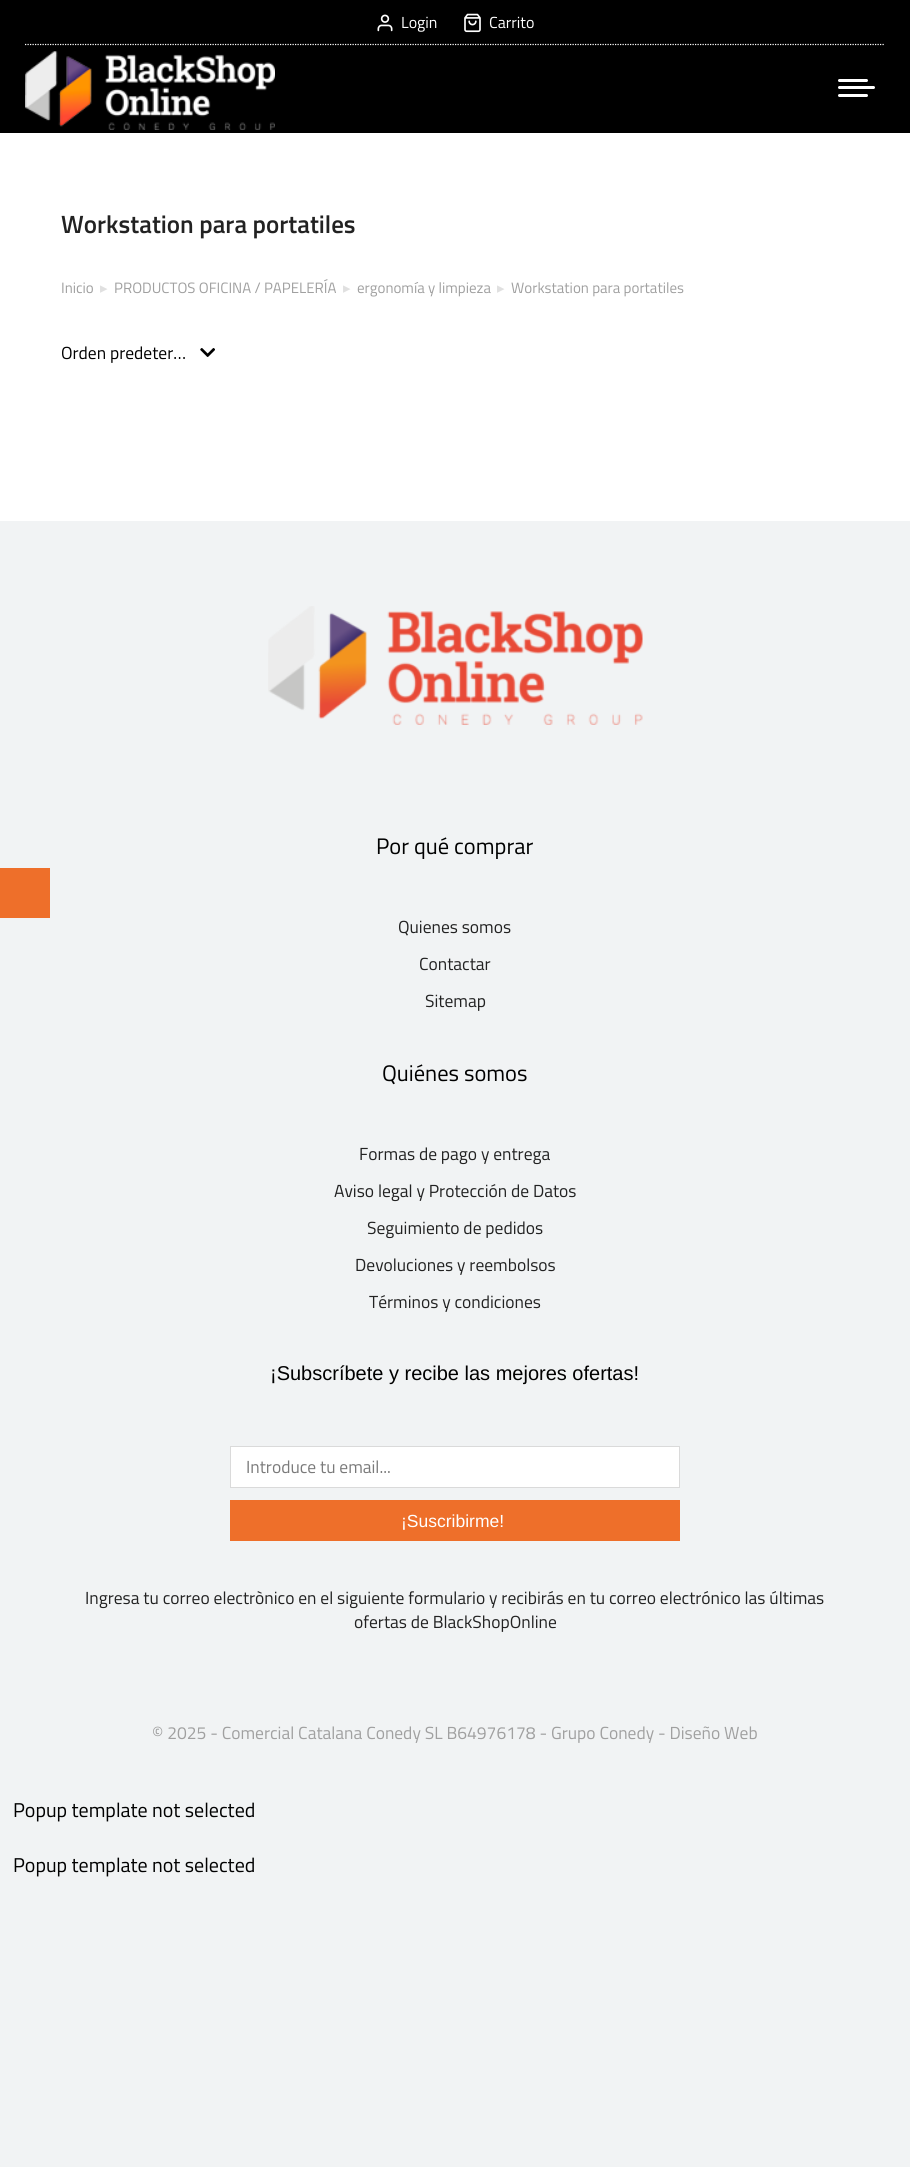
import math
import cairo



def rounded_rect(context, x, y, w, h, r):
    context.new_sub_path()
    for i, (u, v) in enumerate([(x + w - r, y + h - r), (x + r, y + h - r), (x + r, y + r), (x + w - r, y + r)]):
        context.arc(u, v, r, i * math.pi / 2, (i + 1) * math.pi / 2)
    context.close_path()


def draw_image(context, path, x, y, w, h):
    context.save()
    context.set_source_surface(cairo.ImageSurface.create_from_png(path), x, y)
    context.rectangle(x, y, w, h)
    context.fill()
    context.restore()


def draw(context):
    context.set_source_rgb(241 / 255, 243 / 255, 244 / 255)
    context.paint()
    context.set_source_rgb(1, 1, 1)
    context.rectangle(0, 133, 910, 388)
    context.fill()
    context.set_source_rgb(0, 0, 0)
    context.rectangle(0, 0, 910, 133)
    context.fill()
    draw_image(context, "images/1.png", 377, 14, 16, 18)
    draw_image(context, "images/2.png", 464, 13, 17, 20)
    context.new_path()
    context.move_to(25, 44.5)
    context.line_to(885, 44.5)
    context.set_source_rgb(1, 1, 1)
    context.set_line_width(1.2)
    context.set_dash([1.25, 1.25])
    context.stroke()
    draw_image(context, "images/3.png", 25, 51, 250, 79)
    rounded_rect(context, 838, 79, 30, 3, 1.5)
    context.fill()
    rounded_rect(context, 838, 86, 37, 3, 1.5)
    context.fill()
    rounded_rect(context, 838, 94, 30, 3, 1.5)
    context.fill()
    draw_image(context, "images/4.png", 200, 348, 15, 9)
    context.set_source_rgb(238 / 255, 111 / 255, 42 / 255)
    context.rectangle(0, 868, 50, 50)
    context.fill()
    draw_image(context, "images/5.png", 268, 606, 375, 119)
    context.set_source_rgb(1, 1, 1)
    context.rectangle(230.5, 1446.5, 449, 41)
    context.fill_preserve()
    context.set_source_rgb(218 / 255, 218 / 255, 218 / 255)
    context.set_line_width(1)
    context.set_dash([])
    context.stroke()
    context.set_source_rgb(238 / 255, 111 / 255, 42 / 255)
    context.rectangle(230, 1500, 450, 41)
    context.fill()
    context.select_font_face("Titillium Web")
    context.set_font_size(16)
    context.set_source_rgb(1, 1, 1)
    context.move_to(401, 28)
    context.show_text("Login")
    context.move_to(489, 28)
    context.show_text("Carrito")
    context.select_font_face("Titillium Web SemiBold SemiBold")
    context.set_font_size(25)
    context.set_source_rgb(34 / 255, 34 / 255, 34 / 255)
    context.move_to(61, 233)
    context.show_text("Workstation para portatiles")
    context.select_font_face("Titillium Web")
    context.set_font_size(15)
    context.set_source_rgb(160 / 255, 160 / 255, 160 / 255)
    context.move_to(61, 293)
    context.show_text("Inicio")
    context.select_font_face("DejaVu Sans")
    context.set_source_rgb(224 / 255, 224 / 255, 224 / 255)
    context.move_to(100, 293)
    context.show_text("▸")
    context.select_font_face("Titillium Web")
    context.set_source_rgb(160 / 255, 160 / 255, 160 / 255)
    context.move_to(114, 293)
    context.show_text("PRODUCTOS OFICINA / PAPELERÍA")
    context.select_font_face("DejaVu Sans")
    context.set_source_rgb(224 / 255, 224 / 255, 224 / 255)
    context.move_to(343, 293)
    context.show_text("▸")
    context.select_font_face("Titillium Web")
    context.set_source_rgb(160 / 255, 160 / 255, 160 / 255)
    context.move_to(357, 293)
    context.show_text("ergonomía y limpieza")
    context.select_font_face("DejaVu Sans")
    context.set_source_rgb(224 / 255, 224 / 255, 224 / 255)
    context.move_to(497, 293)
    context.show_text("▸")
    context.select_font_face("Titillium Web")
    context.set_source_rgb(160 / 255, 160 / 255, 160 / 255)
    context.move_to(511, 293)
    context.show_text("Workstation para portatiles")
    context.set_font_size(17.5)
    context.set_source_rgb(0, 0, 0)
    context.move_to(61, 359)
    context.show_text("Orden predeter…")
    context.set_font_size(22.5)
    context.move_to(376, 854)
    context.show_text("Por qué comprar")
    context.set_font_size(17.5)
    context.set_source_rgb(34 / 255, 34 / 255, 34 / 255)
    context.move_to(398, 933)
    context.show_text("Quienes somos")
    context.move_to(419, 970)
    context.show_text("Contactar")
    context.move_to(425, 1007)
    context.show_text("Sitemap")
    context.set_font_size(22.5)
    context.set_source_rgb(0, 0, 0)
    context.move_to(382, 1081)
    context.show_text("Quiénes somos")
    context.set_font_size(17.5)
    context.set_source_rgb(34 / 255, 34 / 255, 34 / 255)
    context.move_to(359, 1160)
    context.show_text("Formas de pago y entrega")
    context.move_to(334, 1197)
    context.show_text("Aviso legal y Protección de Datos")
    context.move_to(367, 1234)
    context.show_text("Seguimiento de pedidos")
    context.move_to(355, 1271)
    context.show_text("Devoluciones y reembolsos")
    context.move_to(369, 1308)
    context.show_text("Términos y condiciones")
    context.select_font_face("Liberation Sans")
    context.set_font_size(20)
    context.set_source_rgb(0, 0, 0)
    context.move_to(270, 1380)
    context.show_text("¡Subscríbete y recibe las mejores ofertas!")
    context.select_font_face("Titillium Web")
    context.set_font_size(17.5)
    context.set_source_rgb(122 / 255, 122 / 255, 122 / 255)
    context.move_to(246, 1473)
    context.show_text("Introduce tu email...")
    context.select_font_face("Liberation Sans")
    context.set_source_rgb(1, 1, 1)
    context.move_to(401, 1527)
    context.show_text("¡Suscribirme!")
    context.select_font_face("Titillium Web")
    context.set_source_rgb(34 / 255, 34 / 255, 34 / 255)
    context.move_to(85, 1604)
    context.show_text("Ingresa tu correo electrònico en el siguiente formulario y recibirás en tu correo electrónico las últimas")
    context.move_to(354, 1628)
    context.show_text("ofertas de BlackShopOnline")
    context.set_source_rgb(160 / 255, 160 / 255, 160 / 255)
    context.move_to(152, 1739)
    context.show_text("© 2025 - Comercial Catalana Conedy SL B64976178 - Grupo Conedy - Diseño Web")
    context.set_font_size(20)
    context.set_source_rgb(0, 0, 0)
    context.move_to(13, 1817)
    context.show_text("Popup template not selected")
    context.move_to(13, 1872)
    context.show_text("Popup template not selected")


surface = cairo.ImageSurface(cairo.Format.RGB24, 910, 2167)
context = cairo.Context(surface)
options = cairo.FontOptions()
options.set_hint_metrics(cairo.HintMetrics.OFF)
options.set_hint_style(cairo.HintStyle.NONE)
context.set_font_options(options)
context.set_miter_limit(4)
draw(context)
surface.write_to_png("out.png")
